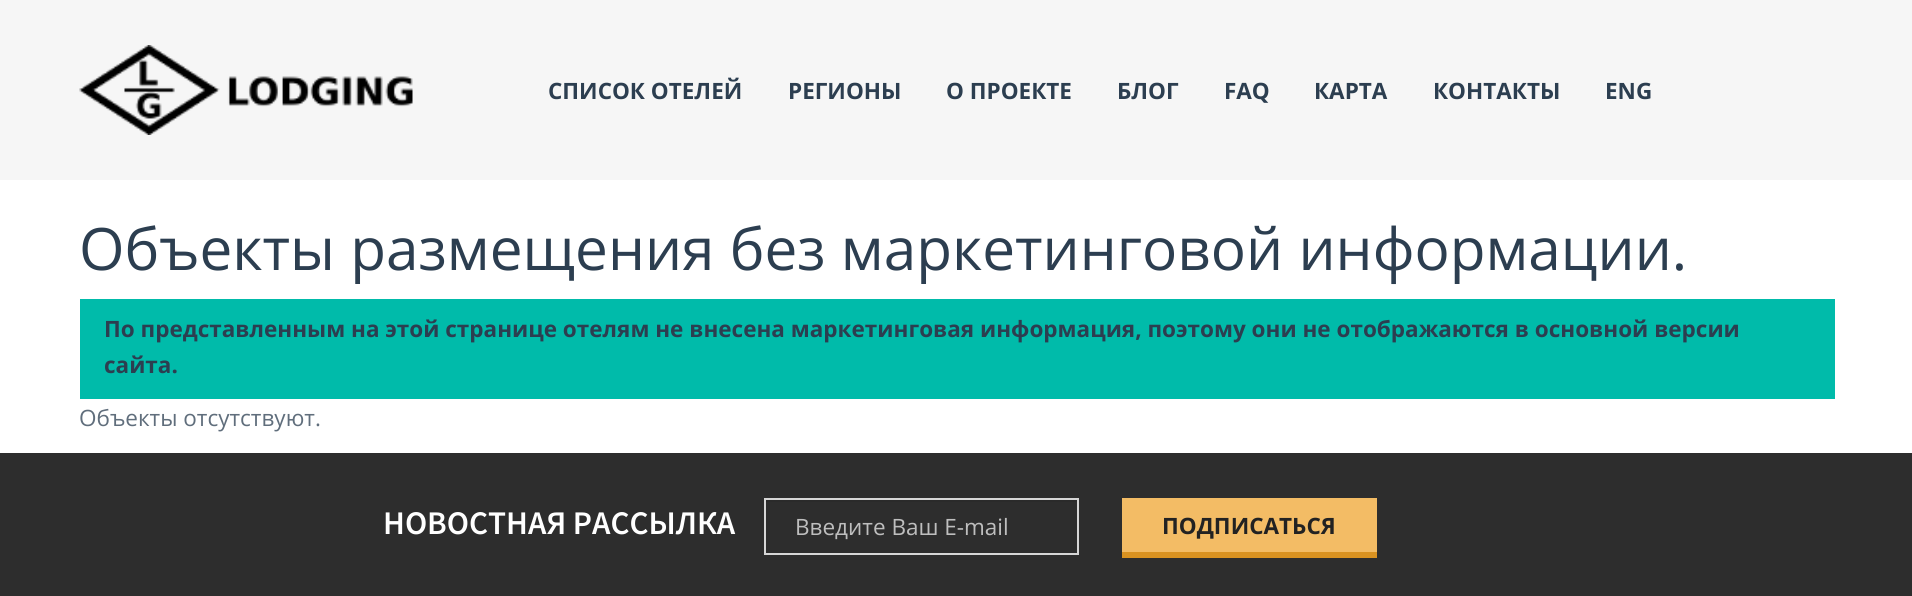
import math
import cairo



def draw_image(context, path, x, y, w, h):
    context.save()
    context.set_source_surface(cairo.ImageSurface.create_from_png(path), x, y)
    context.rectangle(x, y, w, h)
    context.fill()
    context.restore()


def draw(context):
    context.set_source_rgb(1, 1, 1)
    context.paint()
    context.set_source_rgb(246 / 255, 246 / 255, 246 / 255)
    context.rectangle(0, 0, 1912, 180)
    context.fill()
    draw_image(context, "images/1.png", 79, 45, 334, 90)
    context.set_source_rgb(0, 187 / 255, 170 / 255)
    context.rectangle(80, 299, 1755, 100)
    context.fill()
    context.set_source_rgb(45 / 255, 45 / 255, 45 / 255)
    context.rectangle(0, 453, 1912, 143)
    context.fill()
    context.set_source_rgb(42 / 255, 42 / 255, 42 / 255)
    context.rectangle(765, 500, 312, 2)
    context.fill()
    context.rectangle(765, 499, 313, 55)
    context.set_source_rgb(214 / 255, 214 / 255, 214 / 255)
    context.stroke()
    context.set_source_rgb(243 / 255, 188 / 255, 101 / 255)
    context.rectangle(1122, 498, 255, 54)
    context.fill()
    context.set_source_rgb(217 / 255, 146 / 255, 33 / 255)
    context.rectangle(1122, 552, 255, 6)
    context.fill()
    context.select_font_face("Open Sans", cairo.FontSlant.NORMAL, cairo.FontWeight.BOLD)
    context.set_font_size(22.5)
    context.set_source_rgb(44 / 255, 62 / 255, 80 / 255)
    context.move_to(548, 99)
    context.show_text("СПИСОК ОТЕЛЕЙ")
    context.move_to(788, 99)
    context.show_text("РЕГИОНЫ")
    context.move_to(946, 99)
    context.show_text("О ПРОЕКТЕ")
    context.move_to(1117, 99)
    context.show_text("БЛОГ")
    context.move_to(1224, 99)
    context.show_text("FAQ")
    context.move_to(1314, 99)
    context.show_text("КАРТА")
    context.move_to(1433, 99)
    context.show_text("КОНТАКТЫ")
    context.move_to(1605, 99)
    context.show_text("ENG")
    context.select_font_face("Open Sans")
    context.set_font_size(58.5)
    context.move_to(79, 270)
    context.show_text("Объекты размещения без маркетинговой информации.")
    context.select_font_face("Open Sans", cairo.FontSlant.NORMAL, cairo.FontWeight.BOLD)
    context.set_font_size(22.5)
    context.move_to(104, 337)
    context.show_text("По представленным на этой странице отелям не внесена маркетинговая информация, поэтому они не отображаются в основной версии")
    context.move_to(104, 373)
    context.show_text("сайта.")
    context.select_font_face("Open Sans")
    context.set_source_rgb(96 / 255, 110 / 255, 124 / 255)
    context.move_to(79, 426)
    context.show_text("Объекты отсутствуют.")
    context.select_font_face("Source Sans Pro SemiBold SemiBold")
    context.set_font_size(33)
    context.set_source_rgb(1, 1, 1)
    context.move_to(383, 534)
    context.show_text("НОВОСТНАЯ РАССЫЛКА")
    context.select_font_face("Open Sans")
    context.set_font_size(22.5)
    context.set_source_rgb(190 / 255, 190 / 255, 190 / 255)
    context.move_to(795, 535)
    context.show_text("Введите Ваш E-mail")
    context.select_font_face("Open Sans", cairo.FontSlant.NORMAL, cairo.FontWeight.BOLD)
    context.set_source_rgb(34 / 255, 34 / 255, 34 / 255)
    context.move_to(1162, 534)
    context.show_text("ПОДПИСАТЬСЯ")


surface = cairo.ImageSurface(cairo.Format.RGB24, 1912, 596)
context = cairo.Context(surface)
options = cairo.FontOptions()
options.set_hint_metrics(cairo.HintMetrics.OFF)
options.set_hint_style(cairo.HintStyle.NONE)
context.set_font_options(options)
context.set_miter_limit(4)
draw(context)
surface.write_to_png("out.png")
